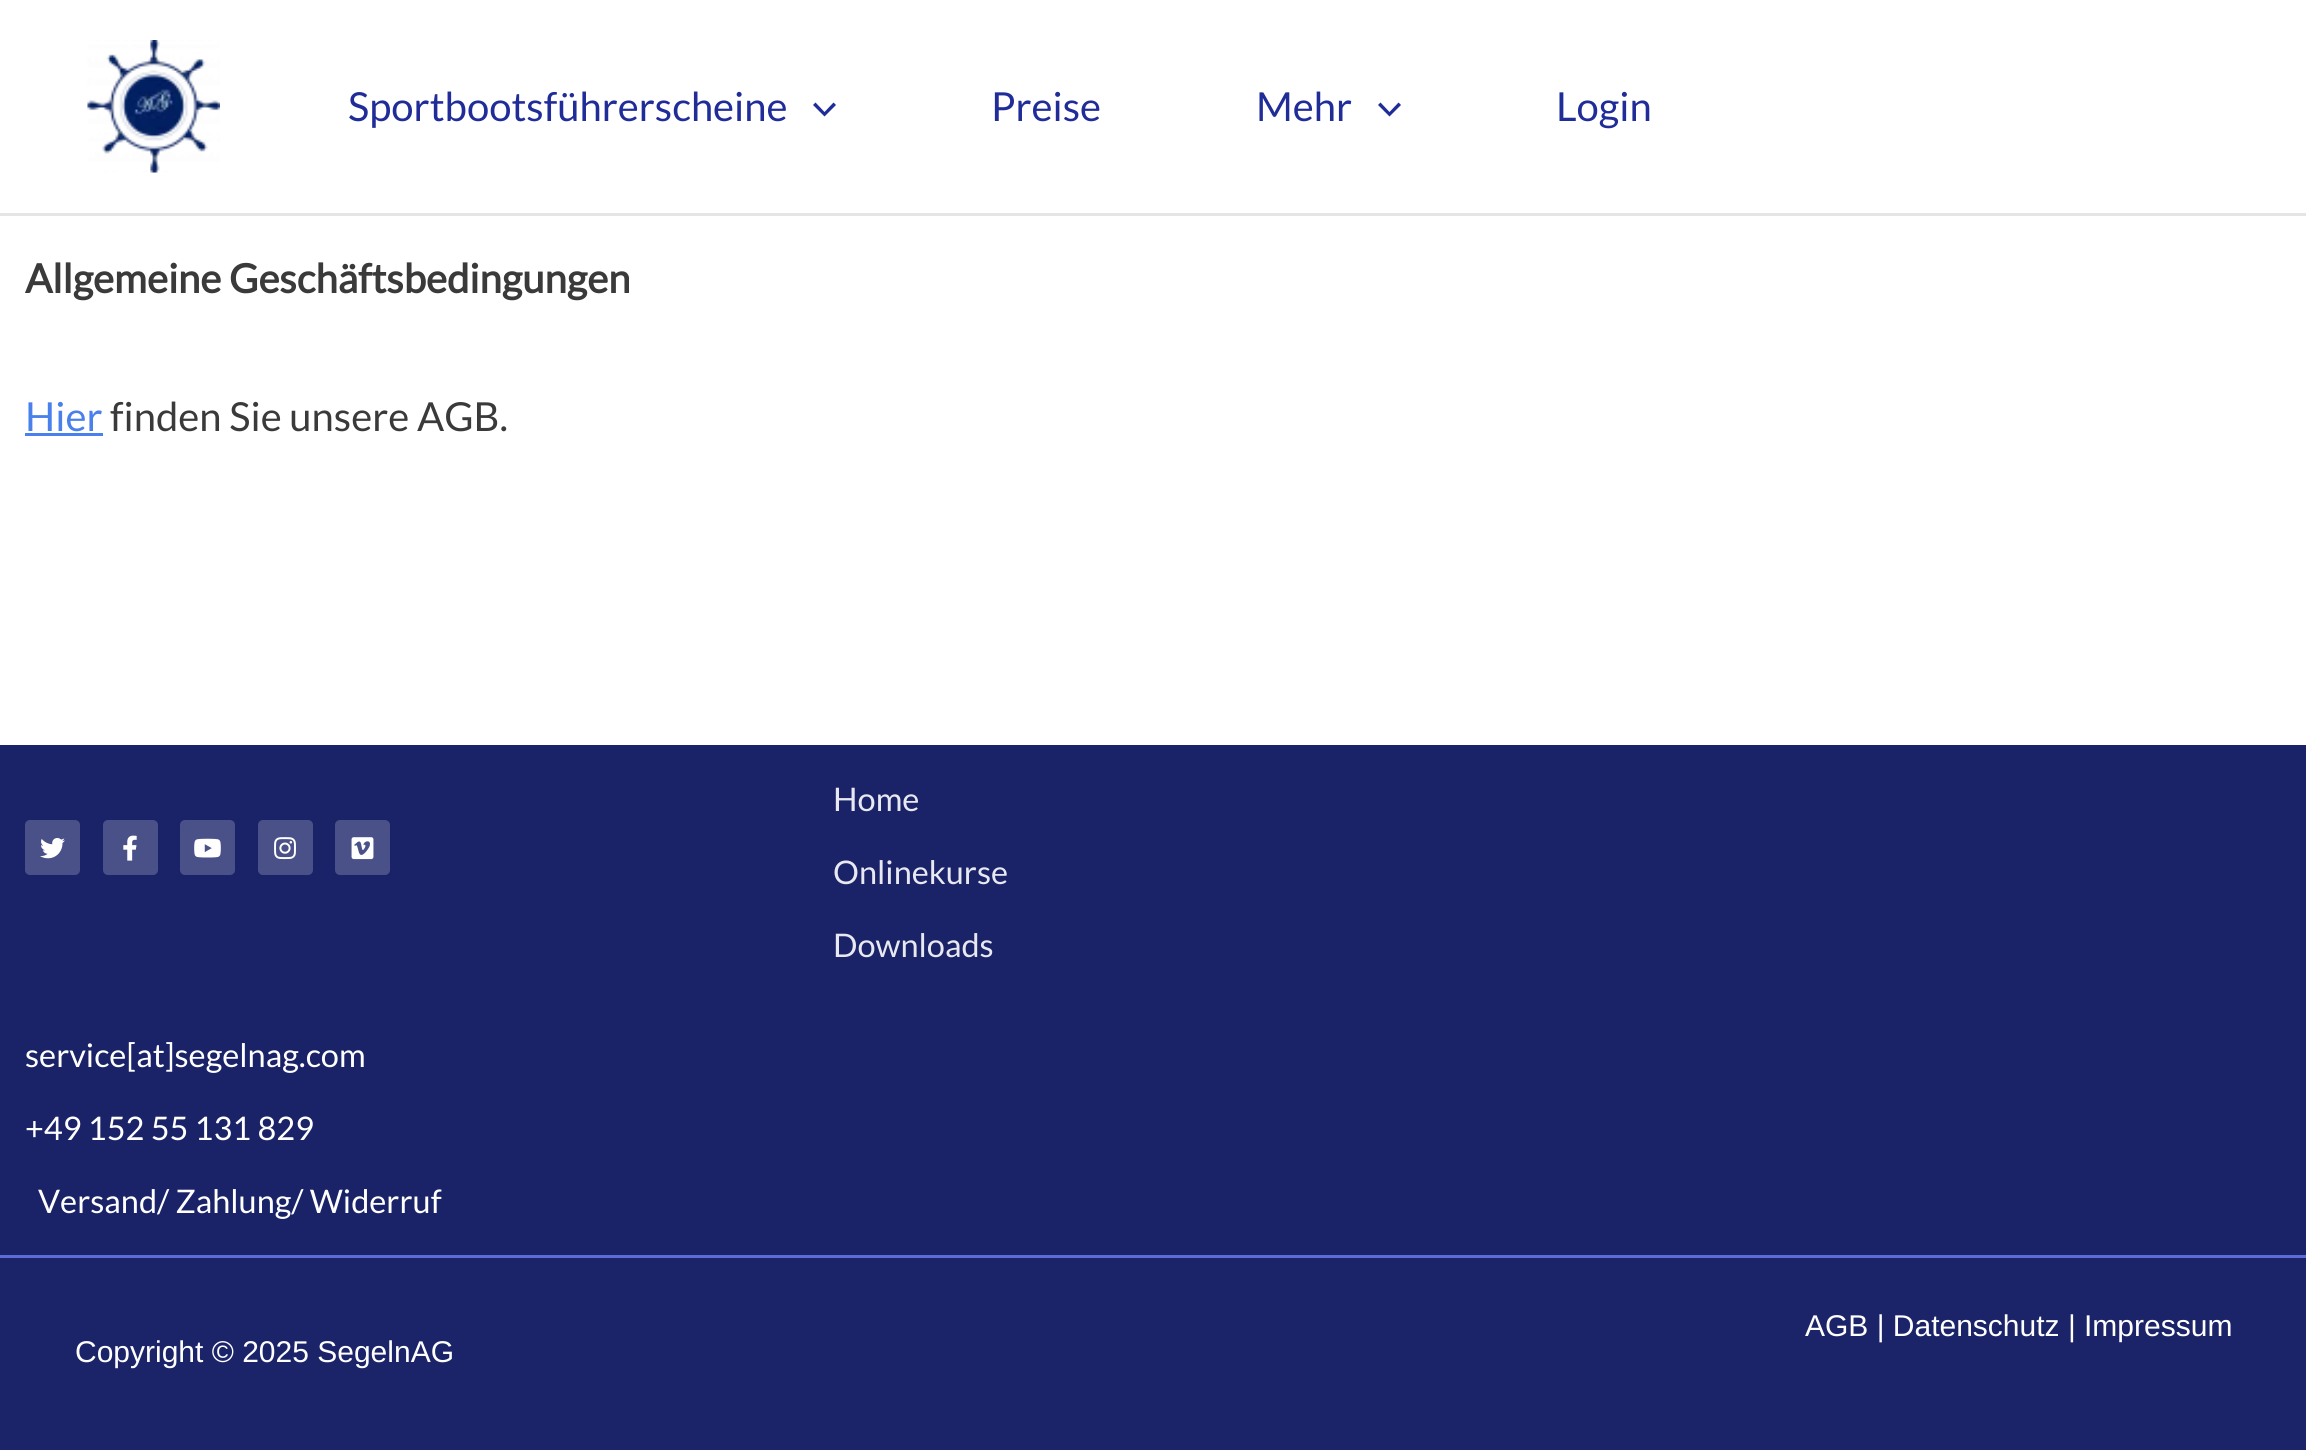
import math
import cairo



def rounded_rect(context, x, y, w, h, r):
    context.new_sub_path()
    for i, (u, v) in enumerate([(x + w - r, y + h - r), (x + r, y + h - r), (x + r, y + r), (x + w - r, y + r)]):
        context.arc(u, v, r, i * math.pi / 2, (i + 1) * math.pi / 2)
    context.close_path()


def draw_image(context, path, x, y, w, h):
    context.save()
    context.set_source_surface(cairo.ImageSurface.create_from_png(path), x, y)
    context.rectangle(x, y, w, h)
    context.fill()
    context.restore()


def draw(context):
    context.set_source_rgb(1, 1, 1)
    context.paint()
    context.set_source_rgb(229 / 255, 229 / 255, 229 / 255)
    context.rectangle(0, 213, 2306, 3)
    context.fill()
    draw_image(context, "images/1.png", 87, 40, 133, 133)
    context.set_source_rgb(32 / 255, 44 / 255, 152 / 255)
    context.new_path()
    context.move_to(813, 105)
    context.line_to(824.5, 116.5)
    context.line_to(836, 105)
    context.line_to(833.5, 102.5)
    context.line_to(824.5, 112)
    context.line_to(815.5, 102.5)
    context.close_path()
    context.fill()
    context.new_path()
    context.move_to(1378, 105)
    context.line_to(1389.5, 116.5)
    context.line_to(1401, 105)
    context.line_to(1398.5, 102.5)
    context.line_to(1389.5, 112)
    context.line_to(1380.5, 102.5)
    context.close_path()
    context.fill()
    context.set_source_rgb(74 / 255, 128 / 255, 236 / 255)
    context.rectangle(25, 433, 78, 3)
    context.fill()
    context.set_source_rgb(26 / 255, 35 / 255, 104 / 255)
    context.rectangle(0, 745, 2306, 510)
    context.fill()
    context.set_source_rgb(74 / 255, 81 / 255, 136 / 255)
    rounded_rect(context, 25, 820, 55, 55, 5)
    context.fill()
    draw_image(context, "images/2.png", 40, 838, 25, 21)
    rounded_rect(context, 103, 820, 55, 55, 5)
    context.fill()
    draw_image(context, "images/3.png", 123, 835, 14, 26)
    rounded_rect(context, 180, 820, 55, 55, 5)
    context.fill()
    draw_image(context, "images/4.png", 194, 838, 27, 20)
    rounded_rect(context, 258, 820, 55, 55, 5)
    context.fill()
    draw_image(context, "images/5.png", 274, 837, 22, 23)
    rounded_rect(context, 335, 820, 55, 55, 5)
    context.fill()
    draw_image(context, "images/6.png", 351, 837, 23, 23)
    context.set_source_rgb(92 / 255, 107 / 255, 215 / 255)
    context.rectangle(0, 1255, 2306, 3)
    context.fill()
    context.set_source_rgb(27 / 255, 36 / 255, 104 / 255)
    context.rectangle(0, 1258, 2306, 192)
    context.fill()
    context.select_font_face("Lato")
    context.set_font_size(40)
    context.set_source_rgb(32 / 255, 44 / 255, 152 / 255)
    context.move_to(348, 121)
    context.show_text("Sportbootsführerscheine")
    context.move_to(991, 121)
    context.show_text("Preise")
    context.move_to(1256, 121)
    context.show_text("Mehr")
    context.move_to(1556, 121)
    context.show_text("Login")
    context.select_font_face("Lato", cairo.FontSlant.NORMAL, cairo.FontWeight.BOLD)
    context.set_source_rgb(58 / 255, 58 / 255, 58 / 255)
    context.move_to(25, 293)
    context.show_text("Allgemeine Geschäftsbedingungen")
    context.select_font_face("Lato")
    context.set_source_rgb(74 / 255, 128 / 255, 236 / 255)
    context.move_to(25, 431)
    context.show_text("Hier")
    context.set_source_rgb(58 / 255, 58 / 255, 58 / 255)
    context.move_to(110, 431)
    context.show_text("finden Sie unsere AGB.")
    context.set_font_size(32.5)
    context.set_source_rgb(232 / 255, 233 / 255, 240 / 255)
    context.move_to(833, 811)
    context.show_text("Home")
    context.move_to(833, 884)
    context.show_text("Onlinekurse")
    context.move_to(833, 957)
    context.show_text("Downloads")
    context.set_source_rgb(1, 1, 1)
    context.move_to(25, 1067)
    context.show_text("service[at]segelnag.com")
    context.move_to(25, 1140)
    context.show_text("+49 152 55 131 829")
    context.move_to(38, 1213)
    context.show_text("Versand/ Zahlung/ Widerruf")
    context.select_font_face("Liberation Sans")
    context.set_font_size(30)
    context.move_to(1805, 1336)
    context.show_text("AGB | Datenschutz | Impressum")
    context.move_to(75, 1362)
    context.show_text("Copyright © 2025 SegelnAG")


surface = cairo.ImageSurface(cairo.Format.RGB24, 2306, 1450)
context = cairo.Context(surface)
options = cairo.FontOptions()
options.set_hint_metrics(cairo.HintMetrics.OFF)
options.set_hint_style(cairo.HintStyle.NONE)
context.set_font_options(options)
context.set_miter_limit(4)
draw(context)
surface.write_to_png("out.png")
